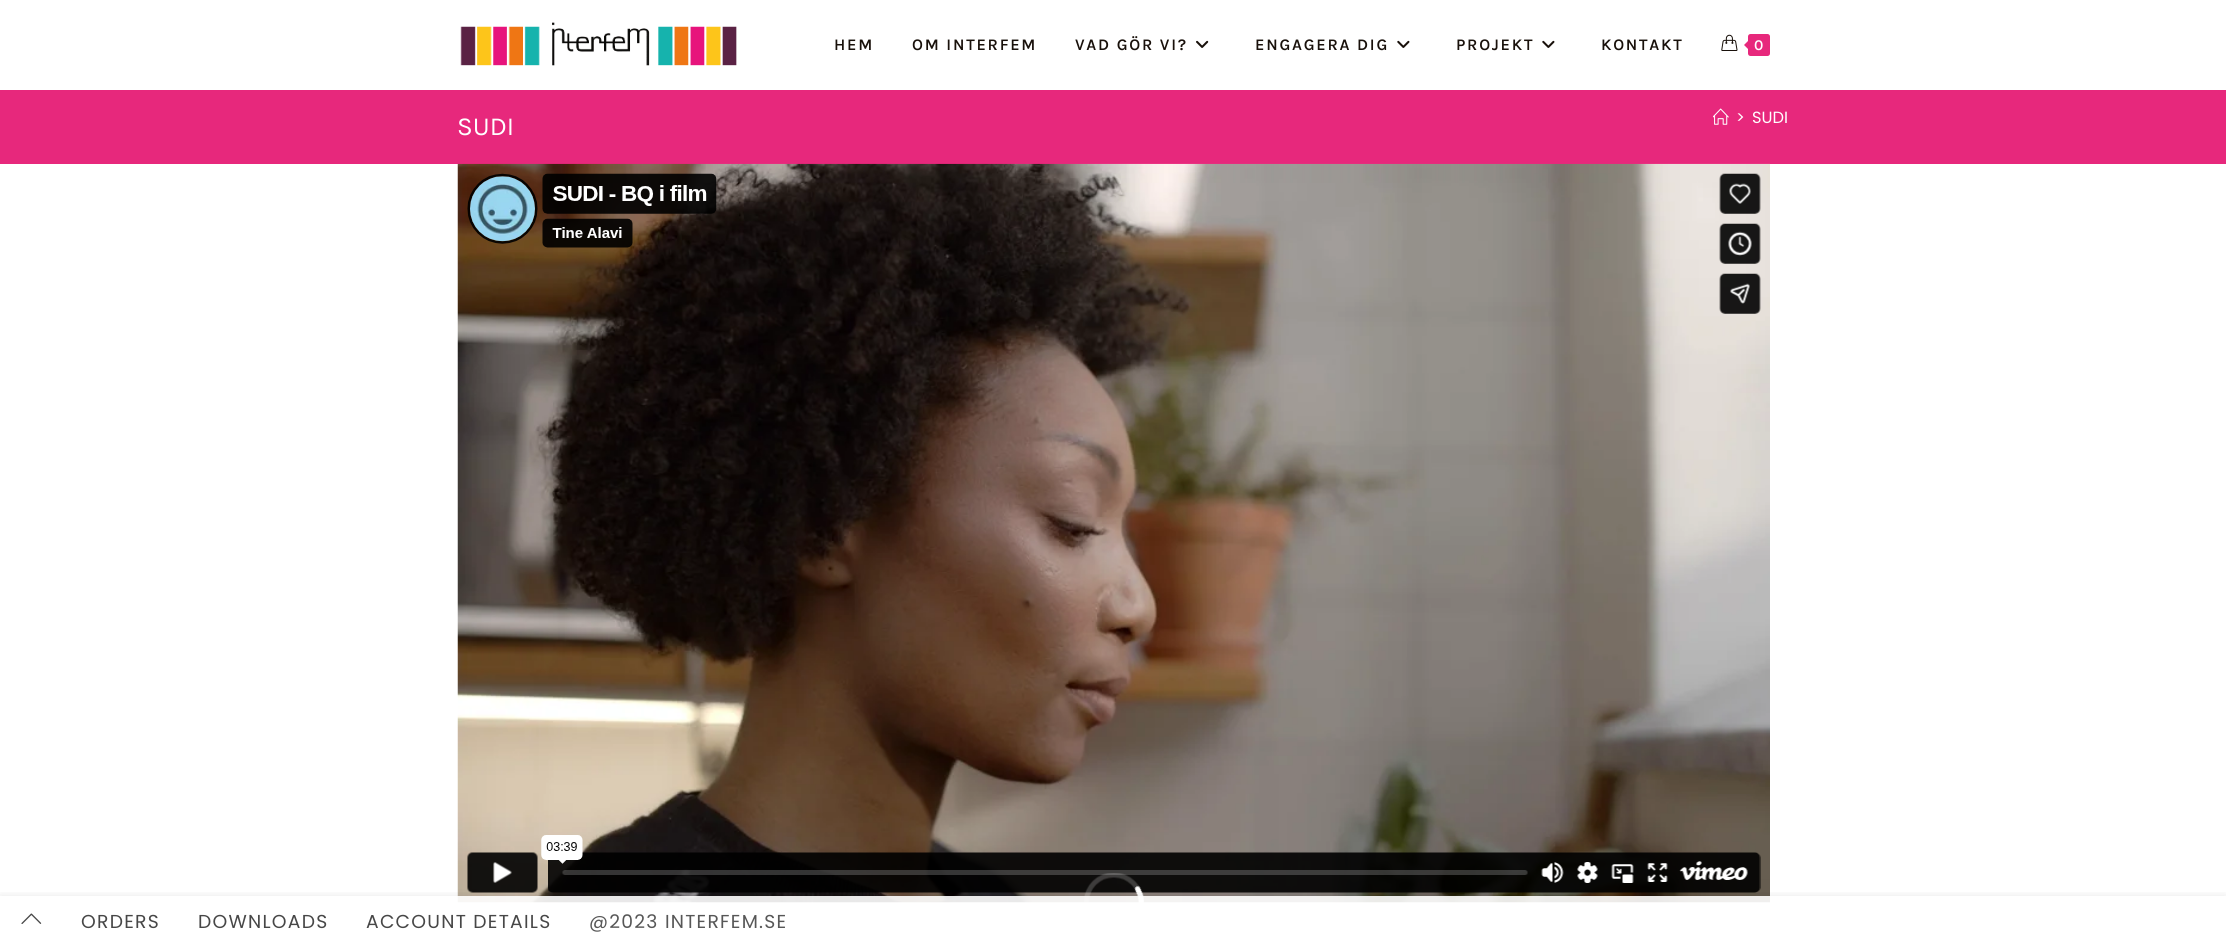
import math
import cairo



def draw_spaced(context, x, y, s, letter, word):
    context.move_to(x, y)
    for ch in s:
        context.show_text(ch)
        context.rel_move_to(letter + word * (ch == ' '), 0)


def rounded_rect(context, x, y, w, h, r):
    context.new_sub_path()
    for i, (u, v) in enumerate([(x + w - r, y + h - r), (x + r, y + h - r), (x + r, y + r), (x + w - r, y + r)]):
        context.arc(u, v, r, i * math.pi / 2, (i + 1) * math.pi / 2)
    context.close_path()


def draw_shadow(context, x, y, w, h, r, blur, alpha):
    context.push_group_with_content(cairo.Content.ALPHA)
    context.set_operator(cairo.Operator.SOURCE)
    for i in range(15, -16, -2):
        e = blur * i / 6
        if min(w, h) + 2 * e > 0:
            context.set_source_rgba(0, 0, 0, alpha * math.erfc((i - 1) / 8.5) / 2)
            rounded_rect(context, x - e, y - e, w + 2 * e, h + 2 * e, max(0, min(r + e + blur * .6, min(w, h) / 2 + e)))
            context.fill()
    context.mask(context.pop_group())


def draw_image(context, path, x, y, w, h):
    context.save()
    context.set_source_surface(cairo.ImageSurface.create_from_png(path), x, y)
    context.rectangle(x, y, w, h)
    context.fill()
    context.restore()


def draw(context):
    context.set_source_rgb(1, 1, 1)
    context.paint()
    draw_image(context, "images/1.png", 460, 22, 277, 44)
    draw_image(context, "images/2.png", 1196, 40, 13, 8)
    draw_image(context, "images/3.png", 1397, 40, 13, 8)
    draw_image(context, "images/3.png", 1542, 40, 13, 8)
    draw_image(context, "images/4.png", 1721, 34, 17, 17)
    context.set_source_rgb(231 / 255, 40 / 255, 124 / 255)
    rounded_rect(context, 1748, 34, 22, 22, 2.5)
    context.fill()
    context.new_path()
    context.move_to(1750, 39)
    context.line_to(1750, 51)
    context.line_to(1744, 45)
    context.close_path()
    context.fill()
    context.rectangle(0, 90, 2226, 74)
    context.fill()
    draw_image(context, "images/5.png", 1713, 108, 16, 17)
    draw_image(context, "images/6.png", 457, 163, 1313, 740)
    context.save()
    context.rectangle(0, 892, 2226, 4)
    context.clip()
    context.set_source_rgb(0, 0, 0)
    draw_shadow(context, 0, 896, 2226, 50, 0, 5, 0.09)
    context.restore()
    context.set_source_rgba(1, 1, 1, 0.9)
    context.rectangle(6, 896, 2214, 7)
    context.fill()
    draw_image(context, "images/7.png", 21, 913, 21, 11)
    context.select_font_face("Karla SemiBold")
    context.set_font_size(16.25)
    context.set_source_rgb(25 / 255, 17 / 255, 11 / 255)
    draw_spaced(context, 834, 50, "HEM", 1.75, 0)
    draw_spaced(context, 912, 50, "OM INTERFEM", 1.75, 0)
    draw_spaced(context, 1075, 50, "VAD GÖR VI?", 1.75, 0)
    draw_spaced(context, 1255, 50, "ENGAGERA DIG", 1.75, 0)
    draw_spaced(context, 1456, 50, "PROJEKT", 1.75, 0)
    draw_spaced(context, 1601, 50, "KONTAKT", 1.75, 0)
    context.set_font_size(15)
    context.set_source_rgb(1, 1, 1)
    context.move_to(1754, 50)
    context.show_text("0")
    context.select_font_face("Karla")
    context.set_font_size(26)
    context.move_to(457, 135)
    context.show_text("SUDI")
    context.select_font_face("Poppins")
    context.set_font_size(16.25)
    context.move_to(1736, 123)
    context.show_text(">")
    context.move_to(1752, 123)
    context.show_text("SUDI")
    context.set_font_size(18.75)
    context.set_source_rgb(71 / 255, 71 / 255, 71 / 255)
    draw_spaced(context, 81, 928, "ORDERS", 1.25, 0)
    draw_spaced(context, 198, 928, "DOWNLOADS", 1.25, 0)
    draw_spaced(context, 366, 928, "ACCOUNT DETAILS", 1.25, 0)
    context.set_source_rgb(87 / 255, 87 / 255, 87 / 255)
    draw_spaced(context, 589, 928, "@2023 INTERFEM.SE", 1.25, 0)


surface = cairo.ImageSurface(cairo.Format.RGB24, 2226, 946)
context = cairo.Context(surface)
options = cairo.FontOptions()
options.set_hint_metrics(cairo.HintMetrics.OFF)
options.set_hint_style(cairo.HintStyle.NONE)
context.set_font_options(options)
context.set_miter_limit(4)
draw(context)
surface.write_to_png("out.png")
